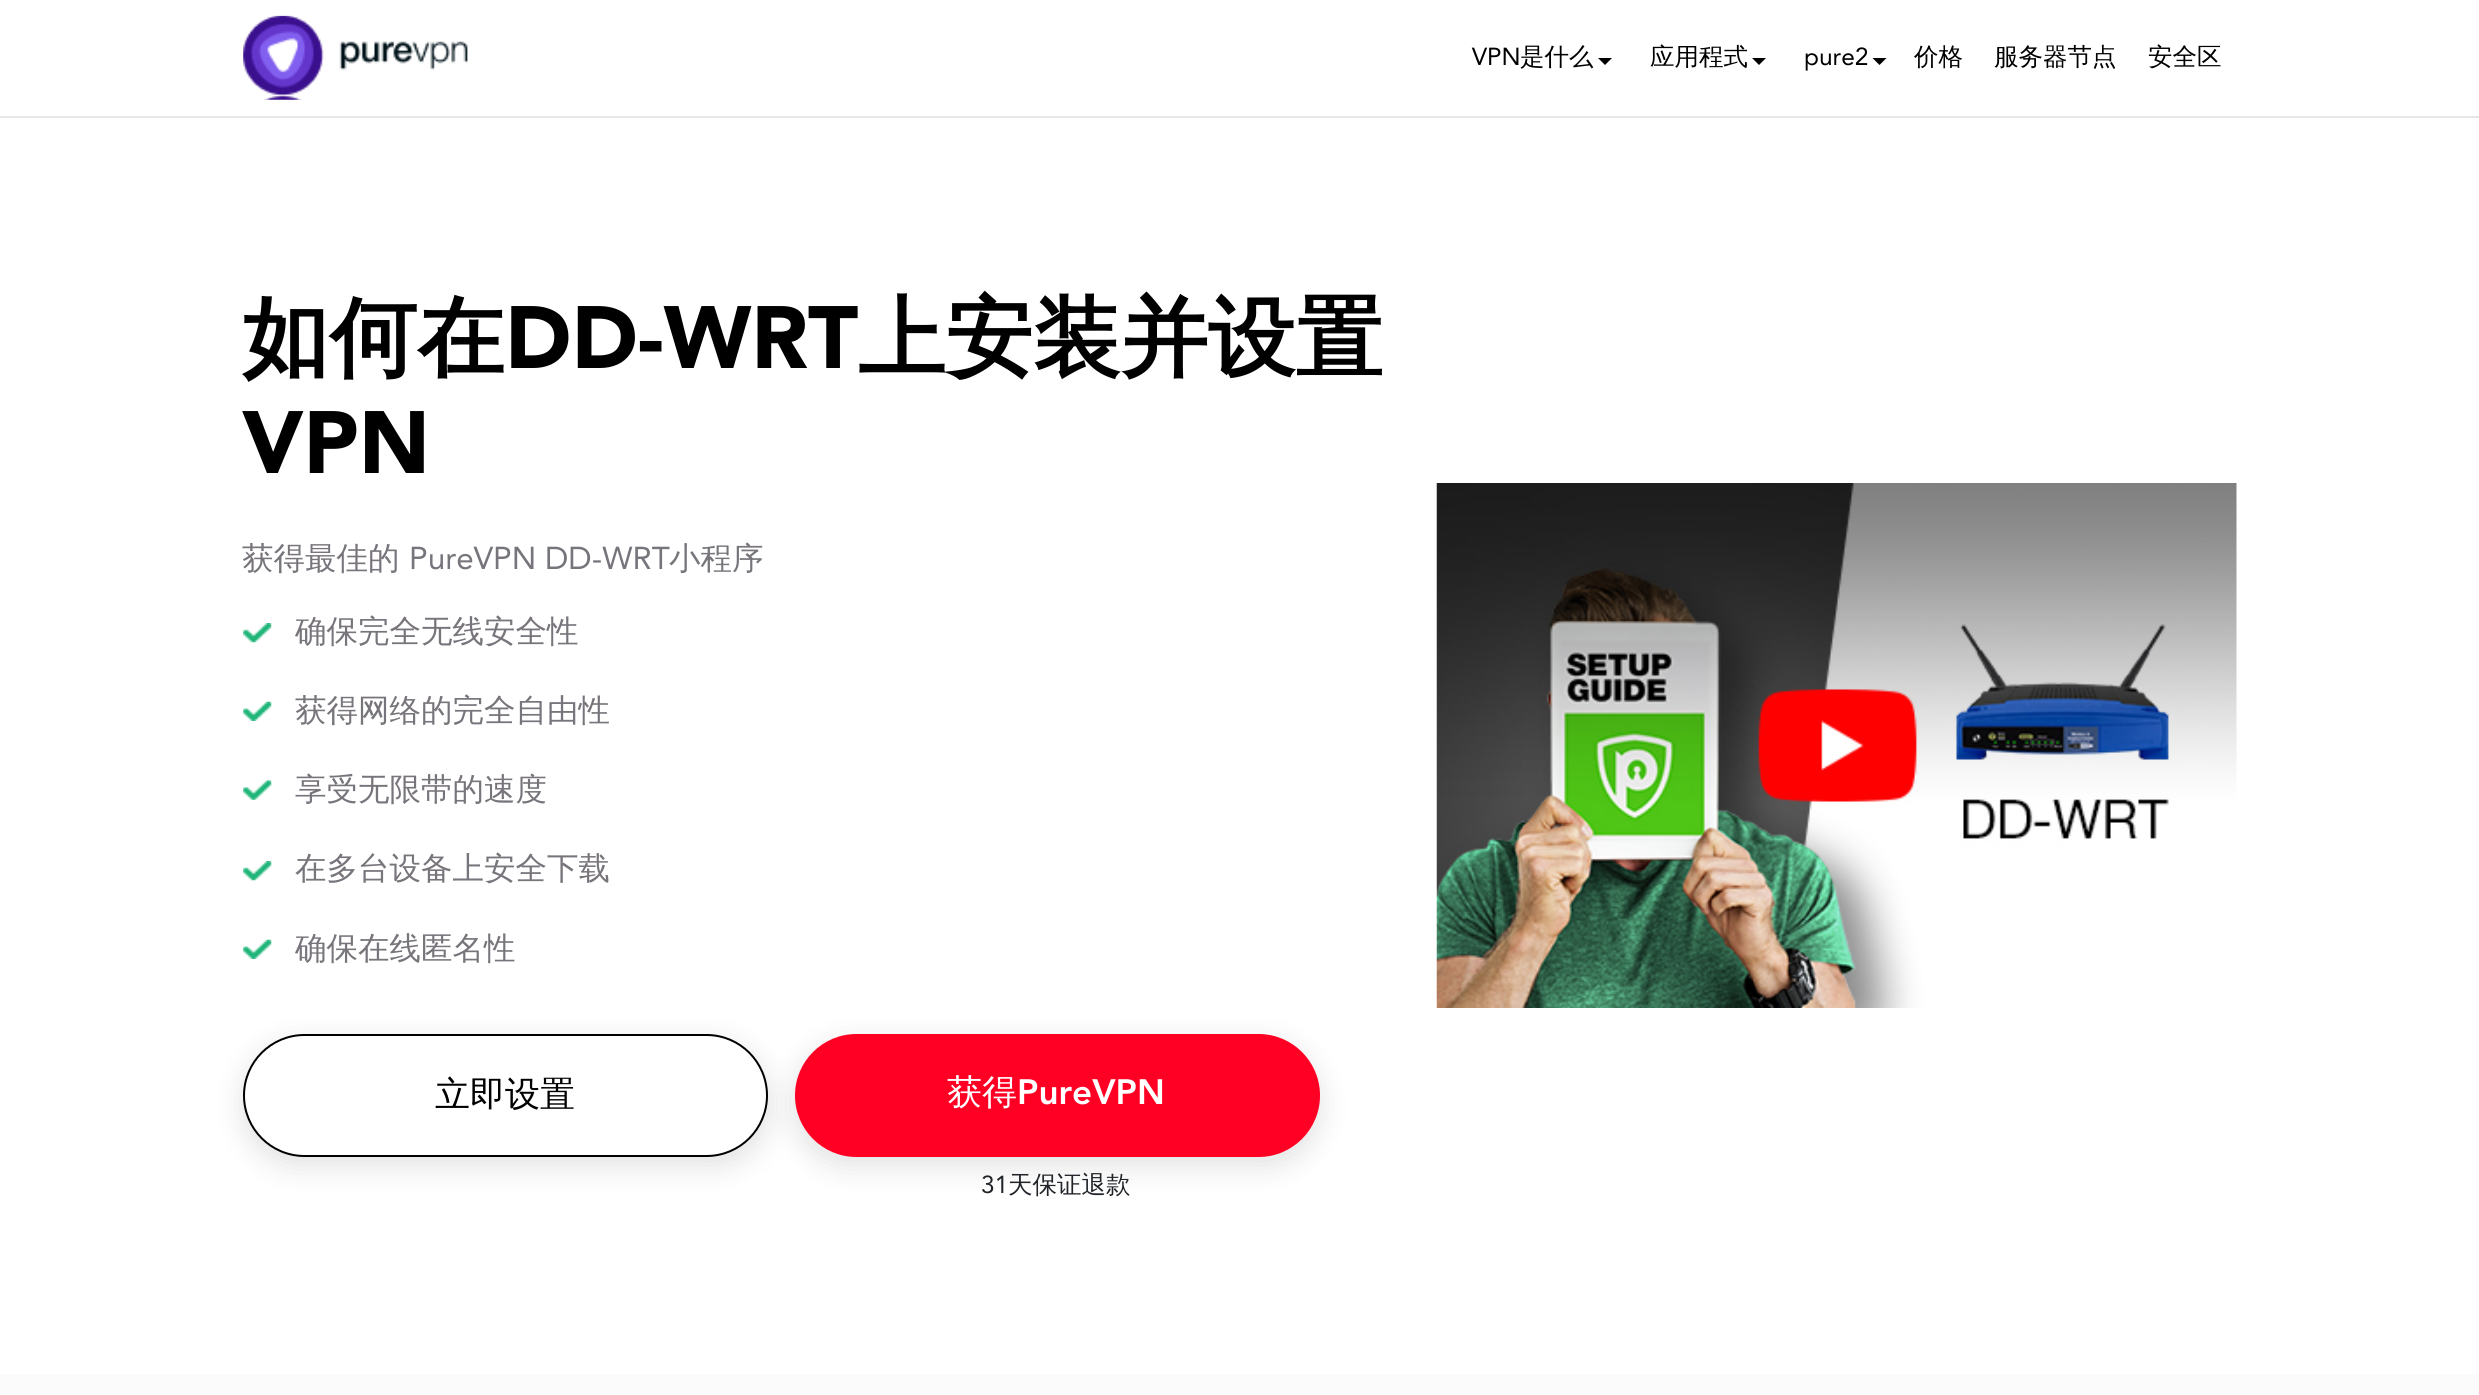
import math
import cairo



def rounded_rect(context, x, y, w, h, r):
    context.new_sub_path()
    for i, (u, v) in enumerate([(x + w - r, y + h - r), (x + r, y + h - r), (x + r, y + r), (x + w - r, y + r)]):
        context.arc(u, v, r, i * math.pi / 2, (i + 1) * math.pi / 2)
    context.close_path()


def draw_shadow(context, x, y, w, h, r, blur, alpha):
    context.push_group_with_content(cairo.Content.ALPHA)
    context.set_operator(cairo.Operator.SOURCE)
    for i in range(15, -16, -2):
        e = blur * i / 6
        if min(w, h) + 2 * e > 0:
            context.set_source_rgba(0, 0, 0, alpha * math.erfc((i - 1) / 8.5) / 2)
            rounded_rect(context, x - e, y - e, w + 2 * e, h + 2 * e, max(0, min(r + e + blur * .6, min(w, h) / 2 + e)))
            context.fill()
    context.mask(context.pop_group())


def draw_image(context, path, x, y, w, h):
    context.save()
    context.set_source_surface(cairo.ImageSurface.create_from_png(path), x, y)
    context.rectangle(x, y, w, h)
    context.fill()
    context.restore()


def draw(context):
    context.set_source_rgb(1, 1, 1)
    context.paint()
    context.set_source_rgb(231 / 255, 231 / 255, 231 / 255)
    context.rectangle(0, 116, 2479, 2)
    context.fill()
    draw_image(context, "images/1.png", 243, 15, 225, 85)
    context.set_source_rgb(0, 0, 0)
    context.new_path()
    context.move_to(1598, 58)
    context.line_to(1612, 58)
    context.line_to(1605, 65)
    context.close_path()
    context.fill()
    context.new_path()
    context.move_to(1752, 58)
    context.line_to(1766, 58)
    context.line_to(1759, 65)
    context.close_path()
    context.fill()
    context.new_path()
    context.move_to(1872.5, 58)
    context.line_to(1886.5, 58)
    context.line_to(1879.5, 65)
    context.close_path()
    context.fill()
    draw_image(context, "images/2.png", 243, 623, 29, 20)
    draw_image(context, "images/3.png", 243, 701, 29, 20)
    draw_image(context, "images/4.png", 243, 780, 29, 20)
    draw_image(context, "images/2.png", 243, 861, 29, 20)
    draw_image(context, "images/3.png", 243, 939, 29, 20)
    context.set_source_rgb(0, 0, 0)
    draw_shadow(context, 240, 1040, 532, 129, 64.5, 13, 0.1)
    context.set_source_rgb(1, 1, 1)
    rounded_rect(context, 244, 1035, 523, 121, 60.5)
    context.fill_preserve()
    context.set_source_rgb(0, 0, 0)
    context.stroke()
    context.set_source_rgb(0, 0, 0)
    draw_shadow(context, 791, 1040, 532, 129, 64.5, 13, 0.1)
    context.set_source_rgb(1, 0, 36 / 255)
    rounded_rect(context, 795, 1034, 525, 123, 61.5)
    context.fill()
    draw_image(context, "images/5.png", 1436, 483, 801, 525)
    context.set_source_rgb(251 / 255, 251 / 255, 252 / 255)
    context.rectangle(0, 1374, 2479, 21)
    context.fill()
    context.select_font_face("Avenir")
    context.set_font_size(24.5)
    context.set_source_rgb(0, 0, 0)
    context.move_to(1472, 65)
    context.show_text("VPN")
    context.select_font_face("WenQuanYi Zen Hei Medium")
    context.move_to(1520, 65)
    context.show_text("是什么")
    context.move_to(1650, 65)
    context.show_text("应用程式")
    context.select_font_face("Avenir")
    context.move_to(1804, 65)
    context.show_text("pure2")
    context.select_font_face("WenQuanYi Zen Hei Medium")
    context.move_to(1914, 65)
    context.show_text("价格")
    context.move_to(1994, 65)
    context.show_text("服务器节点")
    context.move_to(2148, 65)
    context.show_text("安全区")
    context.select_font_face("WenQuanYi Zen Hei", cairo.FontSlant.NORMAL, cairo.FontWeight.BOLD)
    context.set_font_size(87.5)
    context.move_to(242, 368)
    context.show_text("如何在")
    context.select_font_face("Avenir Black")
    context.move_to(505, 368)
    context.show_text("DD-WRT")
    context.select_font_face("WenQuanYi Zen Hei", cairo.FontSlant.NORMAL, cairo.FontWeight.BOLD)
    context.move_to(858, 368)
    context.show_text("上安装并设置")
    context.select_font_face("Avenir Black")
    context.move_to(242, 473)
    context.show_text("VPN")
    context.select_font_face("WenQuanYi Zen Hei Medium")
    context.set_font_size(31.5)
    context.set_source_rgb(120 / 255, 116 / 255, 123 / 255)
    context.move_to(242, 569)
    context.show_text("获得最佳的")
    context.select_font_face("Avenir")
    context.move_to(409, 569)
    context.show_text("PureVPN DD-WRT")
    context.select_font_face("WenQuanYi Zen Hei Medium")
    context.move_to(669, 569)
    context.show_text("小程序")
    context.move_to(295, 642)
    context.show_text("确保完全无线安全性")
    context.move_to(295, 721)
    context.show_text("获得网络的完全自由性")
    context.move_to(295, 800)
    context.show_text("享受无限带的速度")
    context.move_to(295, 879)
    context.show_text("在多台设备上安全下载")
    context.move_to(295, 959)
    context.show_text("确保在线匿名性")
    context.set_font_size(35)
    context.set_source_rgb(0, 0, 0)
    context.move_to(435, 1106)
    context.show_text("立即设置")
    context.set_source_rgb(1, 1, 1)
    context.move_to(947, 1104)
    context.show_text("获得")
    context.select_font_face("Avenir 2 Black")
    context.move_to(1017, 1104)
    context.show_text("PureVPN")
    context.select_font_face("Avenir")
    context.set_font_size(24.5)
    context.set_source_rgb(33 / 255, 37 / 255, 41 / 255)
    context.move_to(981, 1193)
    context.show_text("31")
    context.select_font_face("WenQuanYi Zen Hei Medium")
    context.move_to(1008, 1193)
    context.show_text("天保证退款")


surface = cairo.ImageSurface(cairo.Format.RGB24, 2479, 1395)
context = cairo.Context(surface)
options = cairo.FontOptions()
options.set_hint_metrics(cairo.HintMetrics.OFF)
options.set_hint_style(cairo.HintStyle.NONE)
context.set_font_options(options)
context.set_miter_limit(4)
draw(context)
surface.write_to_png("out.png")
